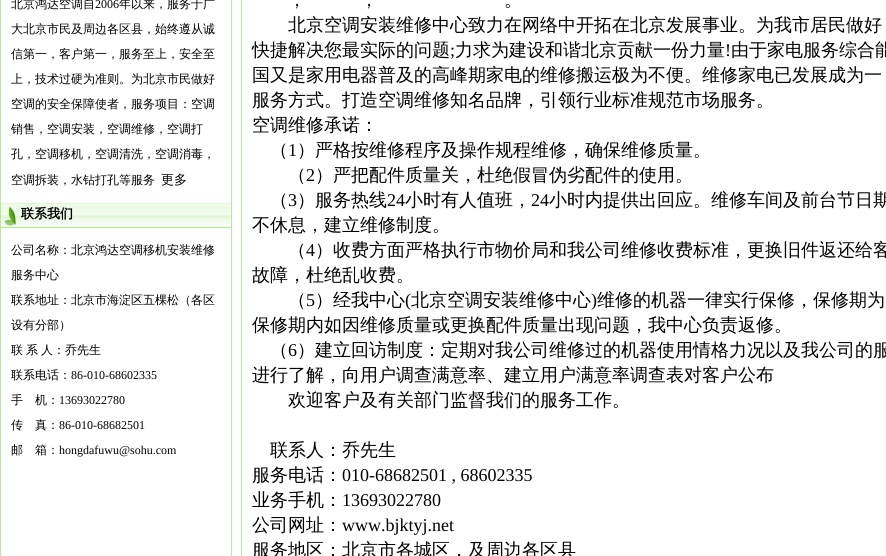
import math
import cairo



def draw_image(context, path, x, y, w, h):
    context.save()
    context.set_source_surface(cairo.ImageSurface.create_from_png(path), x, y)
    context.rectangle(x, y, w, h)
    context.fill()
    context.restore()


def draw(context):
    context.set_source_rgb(1, 1, 1)
    context.paint()
    context.rectangle(0.5, -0.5, 231, 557)
    context.set_source_rgb(181 / 255, 235 / 255, 148 / 255)
    context.set_line_width(1)
    context.stroke()
    draw_image(context, "images/1.png", 1, 203, 230, 25)
    draw_image(context, "images/2.png", 4, 206, 13, 20)
    context.rectangle(241, 0, 1, 556)
    context.fill()
    context.select_font_face("WenQuanYi Zen Hei Medium")
    context.set_font_size(12)
    context.set_source_rgb(0, 0, 0)
    context.move_to(11, 8)
    context.show_text("北京鸿达空调自")
    context.select_font_face("Liberation Serif")
    context.move_to(95, 8)
    context.show_text("2006")
    context.select_font_face("WenQuanYi Zen Hei Medium")
    context.move_to(119, 8)
    context.show_text("年以来，服务于广")
    context.move_to(11, 33)
    context.show_text("大北京市民及周边各区县，始终遵从诚")
    context.move_to(11, 58)
    context.show_text("信第一，客户第一，服务至上，安全至")
    context.move_to(11, 83)
    context.show_text("上，技术过硬为准则。为北京市民做好")
    context.move_to(11, 108)
    context.show_text("空调的安全保障使者，服务项目：空调")
    context.move_to(11, 133)
    context.show_text("销售，空调安装，空调维修，空调打")
    context.move_to(11, 158)
    context.show_text("孔，空调移机，空调清洗，空调消毒，")
    context.move_to(11, 184)
    context.show_text("空调拆装，水钻打孔等服务")
    context.set_font_size(13)
    context.move_to(161, 184)
    context.show_text("更多")
    context.select_font_face("WenQuanYi Zen Hei", cairo.FontSlant.NORMAL, cairo.FontWeight.BOLD)
    context.move_to(21, 218)
    context.show_text("联系我们")
    context.select_font_face("WenQuanYi Zen Hei Medium")
    context.set_font_size(12)
    context.move_to(11, 254)
    context.show_text("公司名称：北京鸿达空调移机安装维修")
    context.move_to(11, 279)
    context.show_text("服务中心")
    context.move_to(11, 304)
    context.show_text("联系地址：北京市海淀区五棵松（各区")
    context.move_to(11, 329)
    context.show_text("设有分部）")
    context.move_to(11, 354)
    context.show_text("联")
    context.move_to(26, 354)
    context.show_text("系")
    context.move_to(41, 354)
    context.show_text("人：乔先生")
    context.move_to(11, 379)
    context.show_text("联系电话：")
    context.select_font_face("Liberation Serif")
    context.move_to(71, 379)
    context.show_text("86-010-68602335")
    context.select_font_face("WenQuanYi Zen Hei Medium")
    context.move_to(11, 404)
    context.show_text("手")
    context.move_to(35, 404)
    context.show_text("机：")
    context.select_font_face("Liberation Serif")
    context.move_to(59, 404)
    context.show_text("13693022780")
    context.select_font_face("WenQuanYi Zen Hei Medium")
    context.move_to(11, 429)
    context.show_text("传")
    context.move_to(35, 429)
    context.show_text("真：")
    context.select_font_face("Liberation Serif")
    context.move_to(59, 429)
    context.show_text("86-010-68682501")
    context.select_font_face("WenQuanYi Zen Hei Medium")
    context.move_to(11, 454)
    context.show_text("邮")
    context.move_to(35, 454)
    context.show_text("箱：")
    context.select_font_face("Liberation Serif")
    context.move_to(59, 454)
    context.show_text("hongdafuwu@sohu.com")
    context.select_font_face("WenQuanYi Zen Hei Medium")
    context.set_font_size(18)
    context.move_to(288, 6)
    context.show_text("，")
    context.move_to(360, 6)
    context.show_text("，")
    context.move_to(504, 6)
    context.show_text("。")
    context.move_to(288, 31)
    context.show_text("北京空调安装维修中心致力在网络中开拓在北京发展事业。为我市居民做好")
    context.move_to(252, 56)
    context.show_text("快捷解决您最实际的问题")
    context.select_font_face("Liberation Serif")
    context.move_to(450, 56)
    context.show_text(";")
    context.select_font_face("WenQuanYi Zen Hei Medium")
    context.move_to(455, 56)
    context.show_text("力求为建设和谐北京贡献一份力量")
    context.select_font_face("Liberation Serif")
    context.move_to(725, 56)
    context.show_text("!")
    context.select_font_face("WenQuanYi Zen Hei Medium")
    context.move_to(731, 56)
    context.show_text("由于家电服务综合能")
    context.move_to(252, 81)
    context.show_text("国又是家用电器普及的高峰期家电的维修搬运极为不便。维修家电已发展成为一")
    context.move_to(252, 106)
    context.show_text("服务方式。打造空调维修知名品牌，引领行业标准规范市场服务。")
    context.move_to(252, 131)
    context.show_text("空调维修承诺：")
    context.move_to(270, 156)
    context.show_text("（")
    context.select_font_face("Liberation Serif")
    context.move_to(288, 156)
    context.show_text("1")
    context.select_font_face("WenQuanYi Zen Hei Medium")
    context.move_to(297, 156)
    context.show_text("）严格按维修程序及操作规程维修，确保维修质量。")
    context.move_to(288, 181)
    context.show_text("（")
    context.select_font_face("Liberation Serif")
    context.move_to(306, 181)
    context.show_text("2")
    context.select_font_face("WenQuanYi Zen Hei Medium")
    context.move_to(315, 181)
    context.show_text("）严把配件质量关，杜绝假冒伪劣配件的使用。")
    context.move_to(270, 206)
    context.show_text("（")
    context.select_font_face("Liberation Serif")
    context.move_to(288, 206)
    context.show_text("3")
    context.select_font_face("WenQuanYi Zen Hei Medium")
    context.move_to(297, 206)
    context.show_text("）服务热线")
    context.select_font_face("Liberation Serif")
    context.move_to(387, 206)
    context.show_text("24")
    context.select_font_face("WenQuanYi Zen Hei Medium")
    context.move_to(405, 206)
    context.show_text("小时有人值班，")
    context.select_font_face("Liberation Serif")
    context.move_to(531, 206)
    context.show_text("24")
    context.select_font_face("WenQuanYi Zen Hei Medium")
    context.move_to(549, 206)
    context.show_text("小时内提供出回应。维修车间及前台节日期")
    context.move_to(252, 231)
    context.show_text("不休息，建立维修制度。")
    context.move_to(288, 256)
    context.show_text("（")
    context.select_font_face("Liberation Serif")
    context.move_to(306, 256)
    context.show_text("4")
    context.select_font_face("WenQuanYi Zen Hei Medium")
    context.move_to(315, 256)
    context.show_text("）收费方面严格执行市物价局和我公司维修收费标准，更换旧件返还给客")
    context.move_to(252, 281)
    context.show_text("故障，杜绝乱收费。")
    context.move_to(288, 306)
    context.show_text("（")
    context.select_font_face("Liberation Serif")
    context.move_to(306, 306)
    context.show_text("5")
    context.select_font_face("WenQuanYi Zen Hei Medium")
    context.move_to(315, 306)
    context.show_text("）经我中心")
    context.select_font_face("Liberation Serif")
    context.move_to(405, 306)
    context.show_text("(")
    context.select_font_face("WenQuanYi Zen Hei Medium")
    context.move_to(411, 306)
    context.show_text("北京空调安装维修中心")
    context.select_font_face("Liberation Serif")
    context.move_to(591, 306)
    context.show_text(")")
    context.select_font_face("WenQuanYi Zen Hei Medium")
    context.move_to(597, 306)
    context.show_text("维修的机器一律实行保修，保修期为")
    context.move_to(252, 331)
    context.show_text("保修期内如因维修质量或更换配件质量出现问题，我中心负责返修。")
    context.move_to(270, 356)
    context.show_text("（")
    context.select_font_face("Liberation Serif")
    context.move_to(288, 356)
    context.show_text("6")
    context.select_font_face("WenQuanYi Zen Hei Medium")
    context.move_to(297, 356)
    context.show_text("）建立回访制度：定期对我公司维修过的机器使用情格力况以及我公司的服")
    context.move_to(252, 381)
    context.show_text("进行了解，向用户调查满意率、建立用户满意率调查表对客户公布")
    context.move_to(288, 406)
    context.show_text("欢迎客户及有关部门监督我们的服务工作。")
    context.move_to(270, 456)
    context.show_text("联系人：乔先生")
    context.move_to(252, 481)
    context.show_text("服务电话：")
    context.select_font_face("Liberation Serif")
    context.move_to(342, 481)
    context.show_text("010-68682501 , 68602335")
    context.select_font_face("WenQuanYi Zen Hei Medium")
    context.move_to(252, 506)
    context.show_text("业务手机：")
    context.select_font_face("Liberation Serif")
    context.move_to(342, 506)
    context.show_text("13693022780")
    context.select_font_face("WenQuanYi Zen Hei Medium")
    context.move_to(252, 531)
    context.show_text("公司网址：")
    context.select_font_face("Liberation Serif")
    context.move_to(342, 531)
    context.show_text("www.bjktyj.net")
    context.select_font_face("WenQuanYi Zen Hei Medium")
    context.move_to(252, 556)
    context.show_text("服务地区：北京市各城区，及周边各区县")


surface = cairo.ImageSurface(cairo.Format.RGB24, 886, 556)
context = cairo.Context(surface)
options = cairo.FontOptions()
options.set_hint_metrics(cairo.HintMetrics.OFF)
options.set_hint_style(cairo.HintStyle.NONE)
context.set_font_options(options)
context.set_miter_limit(4)
draw(context)
surface.write_to_png("out.png")
